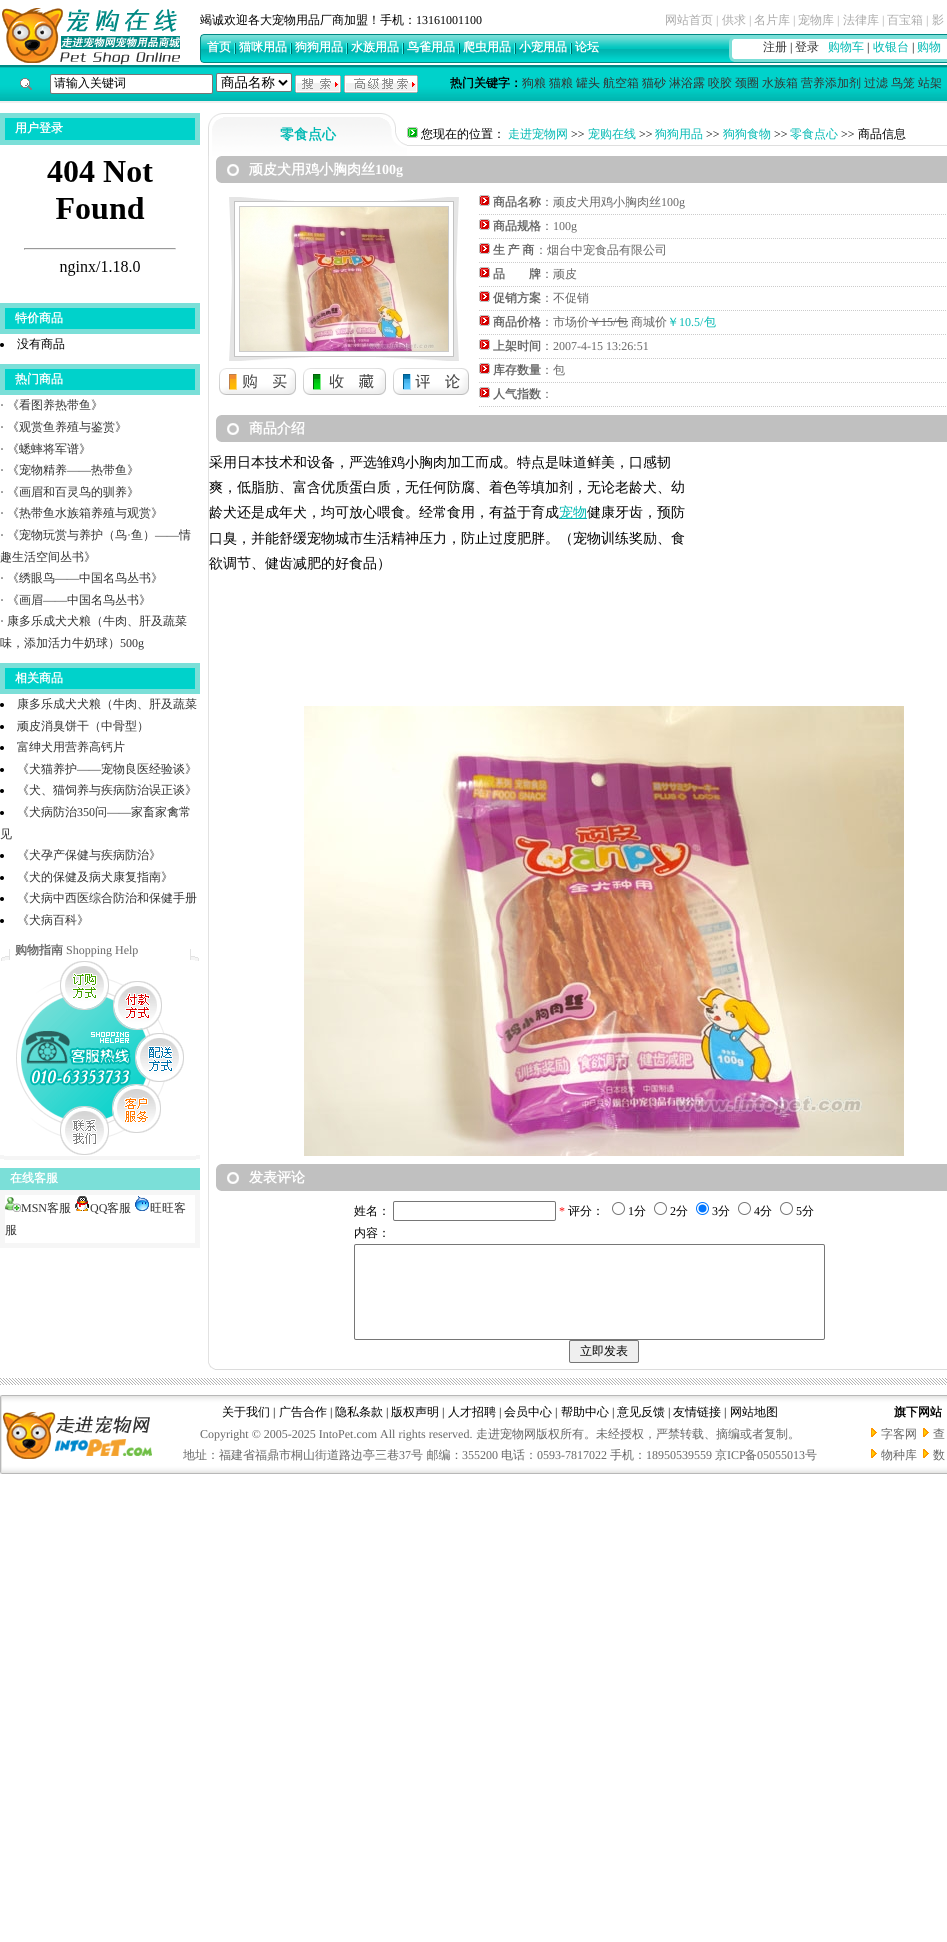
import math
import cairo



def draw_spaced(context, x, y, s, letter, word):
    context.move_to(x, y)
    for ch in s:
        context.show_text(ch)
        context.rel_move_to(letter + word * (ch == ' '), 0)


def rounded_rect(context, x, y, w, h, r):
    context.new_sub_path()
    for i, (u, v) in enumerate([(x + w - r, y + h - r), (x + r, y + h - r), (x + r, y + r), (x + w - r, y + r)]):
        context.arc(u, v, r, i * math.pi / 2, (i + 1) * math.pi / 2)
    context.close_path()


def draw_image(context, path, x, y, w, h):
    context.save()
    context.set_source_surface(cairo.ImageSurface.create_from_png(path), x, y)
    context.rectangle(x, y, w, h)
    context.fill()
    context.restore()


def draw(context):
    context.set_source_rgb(1, 1, 1)
    context.paint()
    draw_image(context, "images/1.png", 2, 8, 178, 57)
    draw_image(context, "images/2.png", 200, 34, 4, 29)
    draw_image(context, "images/3.png", 204, 34, 525, 29)
    draw_image(context, "images/4.png", 234, 43, 2, 11)
    draw_image(context, "images/4.png", 290, 43, 2, 11)
    draw_image(context, "images/4.png", 346, 43, 2, 11)
    draw_image(context, "images/4.png", 402, 43, 2, 11)
    draw_image(context, "images/4.png", 458, 43, 2, 11)
    draw_image(context, "images/4.png", 514, 43, 2, 11)
    draw_image(context, "images/4.png", 570, 43, 2, 11)
    draw_image(context, "images/5.png", 729, 34, 5, 29)
    draw_image(context, "images/6.png", 734, 34, 213, 29)
    draw_image(context, "images/7.png", 0, 65, 947, 38)
    draw_image(context, "images/8.png", 20, 78, 12, 12)
    context.set_source_rgb(1, 1, 1)
    rounded_rect(context, 50.5, 74.5, 162, 19, 1.5)
    context.fill_preserve()
    context.set_source_rgb(118 / 255, 118 / 255, 118 / 255)
    context.set_line_width(1)
    context.stroke()
    context.set_source_rgb(1, 1, 1)
    rounded_rect(context, 216.5, 73.5, 75, 18, 1.5)
    context.fill_preserve()
    context.set_source_rgb(118 / 255, 118 / 255, 118 / 255)
    context.stroke()
    context.new_path()
    context.move_to(279, 80.5)
    context.line_to(283, 84.5)
    context.line_to(287, 80.5)
    context.set_source_rgb(0, 0, 0)
    context.set_line_width(2)
    context.stroke()
    draw_image(context, "images/9.png", 295, 75, 46, 18)
    draw_image(context, "images/10.png", 344, 75, 74, 18)
    context.set_source_rgb(123 / 255, 223 / 255, 216 / 255)
    context.rectangle(0, 113, 200, 32)
    context.fill()
    context.set_source_rgb(0, 210 / 255, 203 / 255)
    context.rectangle(5, 118, 190, 22)
    context.fill()
    draw_image(context, "images/11.png", 24, 161, 152, 115)
    context.set_source_rgb(123 / 255, 223 / 255, 216 / 255)
    context.rectangle(0, 303, 200, 31)
    context.fill()
    context.set_source_rgb(0, 210 / 255, 203 / 255)
    context.rectangle(5, 308, 190, 21)
    context.fill()
    context.set_source_rgb(0, 0, 0)
    context.arc(2, 345, 2, 0, 2 * math.pi)
    context.fill()
    context.set_source_rgb(123 / 255, 223 / 255, 216 / 255)
    context.rectangle(0, 364, 200, 31)
    context.fill()
    context.set_source_rgb(0, 210 / 255, 203 / 255)
    context.rectangle(5, 369, 190, 21)
    context.fill()
    context.set_source_rgb(123 / 255, 223 / 255, 216 / 255)
    context.rectangle(0, 663, 200, 31)
    context.fill()
    context.set_source_rgb(0, 210 / 255, 203 / 255)
    context.rectangle(5, 668, 190, 21)
    context.fill()
    context.set_source_rgb(0, 0, 0)
    context.arc(2, 705, 2, 0, 2 * math.pi)
    context.fill()
    context.arc(2, 727, 2, 0, 2 * math.pi)
    context.fill()
    context.arc(2, 748, 2, 0, 2 * math.pi)
    context.fill()
    context.arc(2, 770, 2, 0, 2 * math.pi)
    context.fill()
    context.arc(2, 791, 2, 0, 2 * math.pi)
    context.fill()
    context.arc(2, 813, 2, 0, 2 * math.pi)
    context.fill()
    context.arc(2, 856, 2, 0, 2 * math.pi)
    context.fill()
    context.arc(2, 878, 2, 0, 2 * math.pi)
    context.fill()
    context.arc(2, 899, 2, 0, 2 * math.pi)
    context.fill()
    context.arc(2, 921, 2, 0, 2 * math.pi)
    context.fill()
    draw_image(context, "images/12.png", 1, 949, 9, 12)
    draw_image(context, "images/13.png", 190, 949, 9, 12)
    draw_image(context, "images/14.png", 16, 961, 168, 194)
    context.set_source_rgb(245 / 255, 245 / 255, 245 / 255)
    context.rectangle(0, 1155, 4, 4)
    context.fill()
    context.rectangle(4, 1156, 192, 4)
    context.fill()
    context.rectangle(196, 1155, 4, 4)
    context.fill()
    context.set_source_rgb(123 / 255, 223 / 255, 216 / 255)
    context.rectangle(0, 1168, 200, 22)
    context.fill()
    context.set_source_rgb(246 / 255, 246 / 255, 246 / 255)
    context.rectangle(0, 1190, 200, 58)
    context.fill()
    context.set_source_rgb(1, 1, 1)
    context.rectangle(5, 1195, 190, 48)
    context.fill()
    draw_image(context, "images/15.png", 5, 1197, 16, 15)
    draw_image(context, "images/16.png", 75, 1196, 14, 15)
    draw_image(context, "images/17.png", 135, 1196, 14, 15)
    draw_image(context, "images/18.png", 208, 113, 199, 43)
    context.set_source_rgb(223 / 255, 223 / 255, 223 / 255)
    context.rectangle(407, 145, 540, 1)
    context.fill()
    draw_image(context, "images/19.png", 407, 127, 11, 11)
    context.set_source_rgb(226 / 255, 226 / 255, 226 / 255)
    context.rectangle(208, 156, 1, 1207)
    context.fill()
    draw_image(context, "images/20.png", 216, 156, 33, 27)
    context.set_source_rgb(192 / 255, 192 / 255, 192 / 255)
    context.rectangle(249, 156, 698, 27)
    context.fill()
    draw_image(context, "images/21.png", 229, 197, 230, 5)
    draw_image(context, "images/22.png", 229, 202, 6, 154)
    context.rectangle(239.5, 206.5, 209, 145)
    context.set_source_rgb(204 / 255, 204 / 255, 204 / 255)
    context.set_line_width(1)
    context.stroke()
    draw_image(context, "images/23.png", 240, 207, 208, 144)
    draw_image(context, "images/24.png", 453, 202, 6, 154)
    draw_image(context, "images/25.png", 229, 356, 230, 5)
    draw_image(context, "images/26.png", 219, 368, 77, 27)
    draw_image(context, "images/27.png", 303, 368, 83, 27)
    draw_image(context, "images/28.png", 393, 368, 76, 27)
    context.new_path()
    context.move_to(479, 214.5)
    context.line_to(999, 214.5)
    context.set_dash([1, 1])
    context.stroke()
    draw_image(context, "images/29.png", 479, 195, 11, 11)
    context.new_path()
    context.move_to(479, 238.5)
    context.line_to(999, 238.5)
    context.stroke()
    draw_image(context, "images/29.png", 479, 219, 11, 11)
    context.new_path()
    context.move_to(479, 262.5)
    context.line_to(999, 262.5)
    context.stroke()
    draw_image(context, "images/29.png", 479, 243, 11, 11)
    context.new_path()
    context.move_to(479, 286.5)
    context.line_to(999, 286.5)
    context.stroke()
    draw_image(context, "images/29.png", 479, 267, 11, 11)
    context.new_path()
    context.move_to(479, 310.5)
    context.line_to(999, 310.5)
    context.stroke()
    draw_image(context, "images/29.png", 479, 291, 11, 11)
    context.new_path()
    context.move_to(479, 334.5)
    context.line_to(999, 334.5)
    context.stroke()
    draw_image(context, "images/29.png", 479, 315, 11, 11)
    context.set_source_rgb(102 / 255, 102 / 255, 102 / 255)
    context.rectangle(589, 321, 39, 1)
    context.fill()
    context.new_path()
    context.move_to(479, 358.5)
    context.line_to(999, 358.5)
    context.set_source_rgb(204 / 255, 204 / 255, 204 / 255)
    context.stroke()
    draw_image(context, "images/29.png", 479, 339, 11, 11)
    context.new_path()
    context.move_to(479, 382.5)
    context.line_to(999, 382.5)
    context.stroke()
    draw_image(context, "images/29.png", 479, 363, 11, 11)
    context.new_path()
    context.move_to(479, 406.5)
    context.line_to(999, 406.5)
    context.stroke()
    draw_image(context, "images/29.png", 479, 387, 11, 11)
    draw_image(context, "images/20.png", 216, 415, 33, 27)
    context.set_source_rgb(192 / 255, 192 / 255, 192 / 255)
    context.rectangle(249, 415, 698, 27)
    context.fill()
    context.set_source_rgb(0, 185 / 255, 179 / 255)
    context.rectangle(559, 518, 28, 1)
    context.fill()
    draw_image(context, "images/30.png", 304, 706, 600, 450)
    draw_image(context, "images/20.png", 216, 1164, 33, 27)
    context.set_source_rgb(192 / 255, 192 / 255, 192 / 255)
    context.rectangle(249, 1164, 698, 27)
    context.fill()
    rounded_rect(context, 393.5, 1201.5, 162, 19, 1.5)
    context.set_source_rgb(118 / 255, 118 / 255, 118 / 255)
    context.set_dash([])
    context.stroke()
    context.arc(618.5, 1208.5, 6, 0, 2 * math.pi)
    context.stroke()
    context.arc(660.5, 1208.5, 6, 0, 2 * math.pi)
    context.stroke()
    context.arc(702.5, 1208.5, 6, 0, 2 * math.pi)
    context.set_source_rgb(0, 117 / 255, 1)
    context.stroke()
    context.arc(702.5, 1208.5, 4, 0, 2 * math.pi)
    context.fill()
    context.arc(744.5, 1208.5, 6, 0, 2 * math.pi)
    context.set_source_rgb(118 / 255, 118 / 255, 118 / 255)
    context.stroke()
    context.arc(786.5, 1208.5, 6, 0, 2 * math.pi)
    context.stroke()
    rounded_rect(context, 354.5, 1244.5, 470, 95, 1.5)
    context.stroke()
    context.set_source_rgb(239 / 255, 239 / 255, 239 / 255)
    rounded_rect(context, 569.5, 1340.5, 69, 22, 1.5)
    context.fill_preserve()
    context.set_source_rgb(118 / 255, 118 / 255, 118 / 255)
    context.stroke()
    draw_image(context, "images/31.png", 208, 1363, 7, 7)
    context.set_source_rgb(220 / 255, 220 / 255, 220 / 255)
    context.rectangle(215, 1369, 732, 1)
    context.fill()
    draw_image(context, "images/32.png", 0, 1378, 947, 7)
    draw_image(context, "images/33.png", 0, 1395, 2, 79)
    draw_image(context, "images/34.png", 2, 1395, 160, 79)
    draw_image(context, "images/35.png", 3, 1412, 149, 47)
    draw_image(context, "images/36.png", 162, 1395, 676, 79)
    draw_image(context, "images/37.png", 838, 1395, 109, 79)
    draw_image(context, "images/38.png", 871, 1428, 6, 9)
    draw_image(context, "images/38.png", 923, 1428, 6, 9)
    draw_image(context, "images/38.png", 871, 1449, 6, 9)
    draw_image(context, "images/38.png", 923, 1449, 6, 9)
    context.select_font_face("WenQuanYi Zen Hei Medium")
    context.set_font_size(12)
    context.set_source_rgb(0, 0, 0)
    context.move_to(200, 24)
    context.show_text("竭诚欢迎各大宠物用品厂商加盟！手机：")
    context.select_font_face("Liberation Serif")
    context.move_to(416, 24)
    context.show_text("13161001100")
    context.select_font_face("WenQuanYi Zen Hei Medium")
    context.set_source_rgb(170 / 255, 170 / 255, 170 / 255)
    context.move_to(665, 24)
    context.show_text("网站首页")
    context.select_font_face("Liberation Serif")
    context.move_to(716, 24)
    context.show_text("|")
    context.select_font_face("WenQuanYi Zen Hei Medium")
    context.move_to(722, 24)
    context.show_text("供求")
    context.select_font_face("Liberation Serif")
    context.move_to(749, 24)
    context.show_text("|")
    context.select_font_face("WenQuanYi Zen Hei Medium")
    context.move_to(754, 24)
    context.show_text("名片库")
    context.select_font_face("Liberation Serif")
    context.move_to(793, 24)
    context.show_text("|")
    context.select_font_face("WenQuanYi Zen Hei Medium")
    context.move_to(798, 24)
    context.show_text("宠物库")
    context.select_font_face("Liberation Serif")
    context.move_to(837, 24)
    context.show_text("|")
    context.select_font_face("WenQuanYi Zen Hei Medium")
    context.move_to(843, 24)
    context.show_text("法律库")
    context.select_font_face("Liberation Serif")
    context.move_to(882, 24)
    context.show_text("|")
    context.select_font_face("WenQuanYi Zen Hei Medium")
    context.move_to(887, 24)
    context.show_text("百宝箱")
    context.select_font_face("Liberation Serif")
    context.move_to(926, 24)
    context.show_text("|")
    context.select_font_face("WenQuanYi Zen Hei Medium")
    context.move_to(932, 24)
    context.show_text("影")
    context.select_font_face("WenQuanYi Zen Hei", cairo.FontSlant.NORMAL, cairo.FontWeight.BOLD)
    context.set_source_rgb(1, 1, 1)
    context.move_to(207, 51)
    context.show_text("首页")
    context.move_to(239, 51)
    context.show_text("猫咪用品")
    context.move_to(295, 51)
    context.show_text("狗狗用品")
    context.move_to(351, 51)
    context.show_text("水族用品")
    context.move_to(407, 51)
    context.show_text("鸟雀用品")
    context.move_to(463, 51)
    context.show_text("爬虫用品")
    context.move_to(519, 51)
    context.show_text("小宠用品")
    context.move_to(575, 51)
    context.show_text("论坛")
    context.select_font_face("WenQuanYi Zen Hei Medium")
    context.set_source_rgb(51 / 255, 51 / 255, 51 / 255)
    context.move_to(763, 51)
    context.show_text("注册")
    context.select_font_face("Liberation Serif")
    context.set_source_rgb(0, 0, 0)
    context.move_to(790, 51)
    context.show_text("|")
    context.select_font_face("WenQuanYi Zen Hei Medium")
    context.set_source_rgb(51 / 255, 51 / 255, 51 / 255)
    context.move_to(795, 51)
    context.show_text("登录")
    context.set_source_rgb(1 / 255, 185 / 255, 179 / 255)
    context.move_to(828, 51)
    context.show_text("购物车")
    context.select_font_face("Liberation Serif")
    context.set_source_rgb(0, 0, 0)
    context.move_to(867, 51)
    context.show_text("|")
    context.select_font_face("WenQuanYi Zen Hei Medium")
    context.set_source_rgb(1 / 255, 185 / 255, 179 / 255)
    context.move_to(873, 51)
    context.show_text("收银台")
    context.select_font_face("Liberation Serif")
    context.set_source_rgb(0, 0, 0)
    context.move_to(912, 51)
    context.show_text("|")
    context.select_font_face("WenQuanYi Zen Hei Medium")
    context.set_source_rgb(1 / 255, 185 / 255, 179 / 255)
    context.move_to(917, 51)
    context.show_text("购物")
    context.set_source_rgb(0, 0, 0)
    context.move_to(54, 87)
    context.show_text("请输入关键词")
    context.set_font_size(13.5)
    context.move_to(221, 87)
    context.show_text("商品名称")
    context.select_font_face("WenQuanYi Zen Hei", cairo.FontSlant.NORMAL, cairo.FontWeight.BOLD)
    context.set_font_size(12)
    context.move_to(450, 87)
    context.show_text("热门关键字：")
    context.select_font_face("WenQuanYi Zen Hei Medium")
    context.set_source_rgb(51 / 255, 51 / 255, 51 / 255)
    context.move_to(522, 87)
    context.show_text("狗粮")
    context.move_to(549, 87)
    context.show_text("猫粮")
    context.move_to(576, 87)
    context.show_text("罐头")
    context.move_to(603, 87)
    context.show_text("航空箱")
    context.move_to(642, 87)
    context.show_text("猫砂")
    context.move_to(669, 87)
    context.show_text("淋浴露")
    context.move_to(708, 87)
    context.show_text("咬胶")
    context.move_to(735, 87)
    context.show_text("颈圈")
    context.move_to(762, 87)
    context.show_text("水族箱")
    context.move_to(801, 87)
    context.show_text("营养添加剂")
    context.move_to(864, 87)
    context.show_text("过滤")
    context.move_to(891, 87)
    context.show_text("鸟笼")
    context.move_to(918, 87)
    context.show_text("站架")
    context.select_font_face("WenQuanYi Zen Hei", cairo.FontSlant.NORMAL, cairo.FontWeight.BOLD)
    context.set_source_rgb(1, 1, 1)
    context.move_to(15, 132)
    context.show_text("用户登录")
    context.move_to(15, 322)
    context.show_text("特价商品")
    context.select_font_face("WenQuanYi Zen Hei Medium")
    context.set_source_rgb(0, 0, 0)
    context.move_to(17, 348)
    context.show_text("没有商品")
    context.select_font_face("WenQuanYi Zen Hei", cairo.FontSlant.NORMAL, cairo.FontWeight.BOLD)
    context.set_source_rgb(1, 1, 1)
    context.move_to(15, 383)
    context.show_text("热门商品")
    context.select_font_face("Liberation Serif")
    context.set_source_rgb(0, 0, 0)
    context.move_to(0, 409)
    context.show_text("·")
    context.select_font_face("WenQuanYi Zen Hei Medium")
    context.set_source_rgb(51 / 255, 51 / 255, 51 / 255)
    context.move_to(7, 409)
    context.show_text("《看图养热带鱼》")
    context.select_font_face("Liberation Serif")
    context.set_source_rgb(0, 0, 0)
    context.move_to(0, 431)
    context.show_text("·")
    context.select_font_face("WenQuanYi Zen Hei Medium")
    context.set_source_rgb(51 / 255, 51 / 255, 51 / 255)
    context.move_to(7, 431)
    context.show_text("《观赏鱼养殖与鉴赏》")
    context.select_font_face("Liberation Serif")
    context.set_source_rgb(0, 0, 0)
    context.move_to(0, 453)
    context.show_text("·")
    context.select_font_face("WenQuanYi Zen Hei Medium")
    context.set_source_rgb(51 / 255, 51 / 255, 51 / 255)
    context.move_to(7, 453)
    context.show_text("《蟋蟀将军谱》")
    context.select_font_face("Liberation Serif")
    context.set_source_rgb(0, 0, 0)
    context.move_to(0, 474)
    context.show_text("·")
    context.select_font_face("WenQuanYi Zen Hei Medium")
    context.set_source_rgb(51 / 255, 51 / 255, 51 / 255)
    context.move_to(7, 474)
    context.show_text("《宠物精养")
    context.select_font_face("Liberation Serif")
    context.move_to(67, 474)
    context.show_text("——")
    context.select_font_face("WenQuanYi Zen Hei Medium")
    context.move_to(91, 474)
    context.show_text("热带鱼》")
    context.select_font_face("Liberation Serif")
    context.set_source_rgb(0, 0, 0)
    context.move_to(0, 496)
    context.show_text("·")
    context.select_font_face("WenQuanYi Zen Hei Medium")
    context.set_source_rgb(51 / 255, 51 / 255, 51 / 255)
    context.move_to(7, 496)
    context.show_text("《画眉和百灵鸟的驯养》")
    context.select_font_face("Liberation Serif")
    context.set_source_rgb(0, 0, 0)
    context.move_to(0, 517)
    context.show_text("·")
    context.select_font_face("WenQuanYi Zen Hei Medium")
    context.set_source_rgb(51 / 255, 51 / 255, 51 / 255)
    context.move_to(7, 517)
    context.show_text("《热带鱼水族箱养殖与观赏》")
    context.select_font_face("Liberation Serif")
    context.set_source_rgb(0, 0, 0)
    context.move_to(0, 539)
    context.show_text("·")
    context.select_font_face("WenQuanYi Zen Hei Medium")
    context.set_source_rgb(51 / 255, 51 / 255, 51 / 255)
    context.move_to(7, 539)
    context.show_text("《宠物玩赏与养护（鸟")
    context.select_font_face("Liberation Serif")
    context.move_to(127, 539)
    context.show_text("·")
    context.select_font_face("WenQuanYi Zen Hei Medium")
    context.move_to(131, 539)
    context.show_text("鱼）")
    context.select_font_face("Liberation Serif")
    context.move_to(155, 539)
    context.show_text("——")
    context.select_font_face("WenQuanYi Zen Hei Medium")
    context.move_to(179, 539)
    context.show_text("情")
    context.move_to(0, 561)
    context.show_text("趣生活空间丛书》")
    context.select_font_face("Liberation Serif")
    context.set_source_rgb(0, 0, 0)
    context.move_to(0, 582)
    context.show_text("·")
    context.select_font_face("WenQuanYi Zen Hei Medium")
    context.set_source_rgb(51 / 255, 51 / 255, 51 / 255)
    context.move_to(7, 582)
    context.show_text("《绣眼鸟")
    context.select_font_face("Liberation Serif")
    context.move_to(55, 582)
    context.show_text("——")
    context.select_font_face("WenQuanYi Zen Hei Medium")
    context.move_to(79, 582)
    context.show_text("中国名鸟丛书》")
    context.select_font_face("Liberation Serif")
    context.set_source_rgb(0, 0, 0)
    context.move_to(0, 604)
    context.show_text("·")
    context.select_font_face("WenQuanYi Zen Hei Medium")
    context.set_source_rgb(51 / 255, 51 / 255, 51 / 255)
    context.move_to(7, 604)
    context.show_text("《画眉")
    context.select_font_face("Liberation Serif")
    context.move_to(43, 604)
    context.show_text("——")
    context.select_font_face("WenQuanYi Zen Hei Medium")
    context.move_to(67, 604)
    context.show_text("中国名鸟丛书》")
    context.select_font_face("Liberation Serif")
    context.set_source_rgb(0, 0, 0)
    context.move_to(0, 625)
    context.show_text("·")
    context.select_font_face("WenQuanYi Zen Hei Medium")
    context.set_source_rgb(51 / 255, 51 / 255, 51 / 255)
    context.move_to(7, 625)
    context.show_text("康多乐成犬犬粮（牛肉、肝及蔬菜")
    context.move_to(0, 647)
    context.show_text("味，添加活力牛奶球）")
    context.select_font_face("Liberation Serif")
    context.move_to(120, 647)
    context.show_text("500g")
    context.select_font_face("WenQuanYi Zen Hei", cairo.FontSlant.NORMAL, cairo.FontWeight.BOLD)
    context.set_source_rgb(1, 1, 1)
    context.move_to(15, 682)
    context.show_text("相关商品")
    context.select_font_face("WenQuanYi Zen Hei Medium")
    context.set_source_rgb(51 / 255, 51 / 255, 51 / 255)
    context.move_to(17, 708)
    context.show_text("康多乐成犬犬粮（牛肉、肝及蔬菜")
    context.move_to(17, 730)
    context.show_text("顽皮消臭饼干（中骨型）")
    context.move_to(17, 751)
    context.show_text("富绅犬用营养高钙片")
    context.move_to(17, 773)
    context.show_text("《犬猫养护")
    context.select_font_face("Liberation Serif")
    context.move_to(77, 773)
    context.show_text("——")
    context.select_font_face("WenQuanYi Zen Hei Medium")
    context.move_to(101, 773)
    context.show_text("宠物良医经验谈》")
    context.move_to(17, 794)
    context.show_text("《犬、猫饲养与疾病防治误正谈》")
    context.move_to(17, 816)
    context.show_text("《犬病防治")
    context.select_font_face("Liberation Serif")
    context.move_to(77, 816)
    context.show_text("350")
    context.select_font_face("WenQuanYi Zen Hei Medium")
    context.move_to(95, 816)
    context.show_text("问")
    context.select_font_face("Liberation Serif")
    context.move_to(107, 816)
    context.show_text("——")
    context.select_font_face("WenQuanYi Zen Hei Medium")
    context.move_to(131, 816)
    context.show_text("家畜家禽常")
    context.move_to(0, 838)
    context.show_text("见")
    context.move_to(17, 859)
    context.show_text("《犬孕产保健与疾病防治》")
    context.move_to(17, 881)
    context.show_text("《犬的保健及病犬康复指南》")
    context.move_to(17, 902)
    context.show_text("《犬病中西医综合防治和保健手册")
    context.move_to(17, 924)
    context.show_text("《犬病百科》")
    context.select_font_face("WenQuanYi Zen Hei", cairo.FontSlant.NORMAL, cairo.FontWeight.BOLD)
    context.set_source_rgb(102 / 255, 102 / 255, 102 / 255)
    context.move_to(15, 954)
    context.show_text("购物指南")
    context.select_font_face("Liberation Serif")
    context.move_to(66, 954)
    context.show_text("Shopping Help")
    context.select_font_face("WenQuanYi Zen Hei", cairo.FontSlant.NORMAL, cairo.FontWeight.BOLD)
    context.set_source_rgb(1, 1, 1)
    context.move_to(10, 1182)
    context.show_text("在线客服")
    context.select_font_face("Liberation Serif")
    context.set_source_rgb(51 / 255, 51 / 255, 51 / 255)
    context.move_to(21, 1212)
    context.show_text("MSN")
    context.select_font_face("WenQuanYi Zen Hei Medium")
    context.move_to(47, 1212)
    context.show_text("客服")
    context.select_font_face("Liberation Serif")
    context.move_to(90, 1212)
    context.show_text("QQ")
    context.select_font_face("WenQuanYi Zen Hei Medium")
    context.move_to(107, 1212)
    context.show_text("客服")
    context.move_to(150, 1212)
    context.show_text("旺旺客")
    context.move_to(5, 1234)
    context.show_text("服")
    context.select_font_face("WenQuanYi Zen Hei", cairo.FontSlant.NORMAL, cairo.FontWeight.BOLD)
    context.set_font_size(14)
    context.set_source_rgb(1 / 255, 185 / 255, 179 / 255)
    context.move_to(280, 139)
    context.show_text("零食点心")
    context.select_font_face("WenQuanYi Zen Hei Medium")
    context.set_font_size(12)
    context.set_source_rgb(0, 0, 0)
    context.move_to(421, 138)
    context.show_text("您现在的位置：")
    context.set_source_rgb(1 / 255, 185 / 255, 179 / 255)
    context.move_to(508, 138)
    context.show_text("走进宠物网")
    context.select_font_face("Liberation Serif")
    context.set_source_rgb(0, 0, 0)
    context.move_to(571, 138)
    context.show_text(">>")
    context.select_font_face("WenQuanYi Zen Hei Medium")
    context.set_source_rgb(1 / 255, 185 / 255, 179 / 255)
    context.move_to(588, 138)
    context.show_text("宠购在线")
    context.select_font_face("Liberation Serif")
    context.set_source_rgb(0, 0, 0)
    context.move_to(639, 138)
    context.show_text(">>")
    context.select_font_face("WenQuanYi Zen Hei Medium")
    context.set_source_rgb(1 / 255, 185 / 255, 179 / 255)
    context.move_to(655, 138)
    context.show_text("狗狗用品")
    context.select_font_face("Liberation Serif")
    context.set_source_rgb(0, 0, 0)
    context.move_to(706, 138)
    context.show_text(">>")
    context.select_font_face("WenQuanYi Zen Hei Medium")
    context.set_source_rgb(1 / 255, 185 / 255, 179 / 255)
    context.move_to(723, 138)
    context.show_text("狗狗食物")
    context.select_font_face("Liberation Serif")
    context.set_source_rgb(0, 0, 0)
    context.move_to(774, 138)
    context.show_text(">>")
    context.select_font_face("WenQuanYi Zen Hei Medium")
    context.set_source_rgb(1 / 255, 185 / 255, 179 / 255)
    context.move_to(790, 138)
    context.show_text("零食点心")
    context.select_font_face("Liberation Serif")
    context.set_source_rgb(0, 0, 0)
    context.move_to(841, 138)
    context.show_text(">>")
    context.select_font_face("WenQuanYi Zen Hei Medium")
    context.move_to(858, 138)
    context.show_text("商品信息")
    context.select_font_face("WenQuanYi Zen Hei", cairo.FontSlant.NORMAL, cairo.FontWeight.BOLD)
    context.set_font_size(14)
    context.set_source_rgb(1, 1, 1)
    context.move_to(249, 174)
    context.show_text("顽皮犬用鸡小胸肉丝")
    context.select_font_face("Liberation Serif", cairo.FontSlant.NORMAL, cairo.FontWeight.BOLD)
    context.move_to(375, 174)
    context.show_text("100g")
    context.select_font_face("WenQuanYi Zen Hei", cairo.FontSlant.NORMAL, cairo.FontWeight.BOLD)
    context.set_font_size(12)
    context.set_source_rgb(102 / 255, 102 / 255, 102 / 255)
    context.move_to(493, 206)
    context.show_text("商品名称")
    context.select_font_face("WenQuanYi Zen Hei Medium")
    context.move_to(541, 206)
    context.show_text("：顽皮犬用鸡小胸肉丝")
    context.select_font_face("Liberation Serif")
    context.move_to(661, 206)
    context.show_text("100g")
    context.select_font_face("WenQuanYi Zen Hei", cairo.FontSlant.NORMAL, cairo.FontWeight.BOLD)
    context.move_to(493, 230)
    context.show_text("商品规格")
    context.select_font_face("WenQuanYi Zen Hei Medium")
    context.move_to(541, 230)
    context.show_text("：")
    context.select_font_face("Liberation Serif")
    context.move_to(553, 230)
    context.show_text("100g")
    context.select_font_face("WenQuanYi Zen Hei", cairo.FontSlant.NORMAL, cairo.FontWeight.BOLD)
    draw_spaced(context, 493, 254, "生 产 商", 0, -1)
    context.select_font_face("WenQuanYi Zen Hei Medium")
    context.move_to(535, 254)
    context.show_text("：烟台中宠食品有限公司")
    context.select_font_face("WenQuanYi Zen Hei", cairo.FontSlant.NORMAL, cairo.FontWeight.BOLD)
    context.move_to(493, 278)
    context.show_text("品　　牌")
    context.select_font_face("WenQuanYi Zen Hei Medium")
    context.move_to(541, 278)
    context.show_text("：顽皮")
    context.select_font_face("WenQuanYi Zen Hei", cairo.FontSlant.NORMAL, cairo.FontWeight.BOLD)
    context.move_to(493, 302)
    context.show_text("促销方案")
    context.select_font_face("WenQuanYi Zen Hei Medium")
    context.move_to(541, 302)
    context.show_text("：不促销")
    context.select_font_face("WenQuanYi Zen Hei", cairo.FontSlant.NORMAL, cairo.FontWeight.BOLD)
    context.move_to(493, 326)
    context.show_text("商品价格")
    context.select_font_face("WenQuanYi Zen Hei Medium")
    context.move_to(541, 326)
    context.show_text("：市场价￥")
    context.select_font_face("Liberation Serif")
    context.move_to(601, 326)
    context.show_text("15/")
    context.select_font_face("WenQuanYi Zen Hei Medium")
    context.move_to(616, 326)
    context.show_text("包")
    context.move_to(631, 326)
    context.show_text("商城价")
    context.set_source_rgb(1 / 255, 185 / 255, 179 / 255)
    context.move_to(667, 326)
    context.show_text("￥")
    context.select_font_face("Liberation Serif")
    context.move_to(679, 326)
    context.show_text("10.5/")
    context.select_font_face("WenQuanYi Zen Hei Medium")
    context.move_to(704, 326)
    context.show_text("包")
    context.select_font_face("WenQuanYi Zen Hei", cairo.FontSlant.NORMAL, cairo.FontWeight.BOLD)
    context.set_source_rgb(102 / 255, 102 / 255, 102 / 255)
    context.move_to(493, 350)
    context.show_text("上架时间")
    context.select_font_face("WenQuanYi Zen Hei Medium")
    context.move_to(541, 350)
    context.show_text("：")
    context.select_font_face("Liberation Serif")
    context.move_to(553, 350)
    context.show_text("2007-4-15 13:26:51")
    context.select_font_face("WenQuanYi Zen Hei", cairo.FontSlant.NORMAL, cairo.FontWeight.BOLD)
    context.move_to(493, 374)
    context.show_text("库存数量")
    context.select_font_face("WenQuanYi Zen Hei Medium")
    context.move_to(541, 374)
    context.show_text("：包")
    context.select_font_face("WenQuanYi Zen Hei", cairo.FontSlant.NORMAL, cairo.FontWeight.BOLD)
    context.move_to(493, 398)
    context.show_text("人气指数")
    context.select_font_face("WenQuanYi Zen Hei Medium")
    context.move_to(541, 398)
    context.show_text("：")
    context.select_font_face("WenQuanYi Zen Hei", cairo.FontSlant.NORMAL, cairo.FontWeight.BOLD)
    context.set_font_size(14)
    context.set_source_rgb(1, 1, 1)
    context.move_to(249, 433)
    context.show_text("商品介绍")
    context.select_font_face("WenQuanYi Zen Hei Medium")
    context.set_source_rgb(0, 0, 0)
    context.move_to(209, 467)
    context.show_text("采用日本技术和设备，严选雏鸡小胸肉加工而成。特点是味道鲜美，口感韧")
    context.move_to(209, 492)
    context.show_text("爽，低脂肪、富含优质蛋白质，无任何防腐、着色等填加剂，无论老龄犬、幼")
    context.move_to(209, 517)
    context.show_text("龄犬还是成年犬，均可放心喂食。经常食用，有益于育成")
    context.set_source_rgb(1 / 255, 185 / 255, 179 / 255)
    context.move_to(559, 517)
    context.show_text("宠物")
    context.set_source_rgb(0, 0, 0)
    context.move_to(587, 517)
    context.show_text("健康牙齿，预防")
    context.move_to(209, 543)
    context.show_text("口臭，并能舒缓宠物城市生活精神压力，防止过度肥胖。（宠物训练奖励、食")
    context.move_to(209, 568)
    context.show_text("欲调节、健齿减肥的好食品）")
    context.select_font_face("WenQuanYi Zen Hei", cairo.FontSlant.NORMAL, cairo.FontWeight.BOLD)
    context.set_source_rgb(1, 1, 1)
    context.move_to(249, 1182)
    context.show_text("发表评论")
    context.select_font_face("WenQuanYi Zen Hei Medium")
    context.set_font_size(12)
    context.set_source_rgb(0, 0, 0)
    context.move_to(354, 1215)
    context.show_text("姓名：")
    context.select_font_face("Liberation Serif")
    context.set_source_rgb(1, 0, 0)
    context.move_to(559, 1215)
    context.show_text("*")
    context.select_font_face("WenQuanYi Zen Hei Medium")
    context.set_source_rgb(0, 0, 0)
    context.move_to(568, 1215)
    context.show_text("评分：")
    context.select_font_face("Liberation Serif")
    context.move_to(628, 1215)
    context.show_text("1")
    context.select_font_face("WenQuanYi Zen Hei Medium")
    context.move_to(634, 1215)
    context.show_text("分")
    context.select_font_face("Liberation Serif")
    context.move_to(670, 1215)
    context.show_text("2")
    context.select_font_face("WenQuanYi Zen Hei Medium")
    context.move_to(676, 1215)
    context.show_text("分")
    context.select_font_face("Liberation Serif")
    context.move_to(712, 1215)
    context.show_text("3")
    context.select_font_face("WenQuanYi Zen Hei Medium")
    context.move_to(718, 1215)
    context.show_text("分")
    context.select_font_face("Liberation Serif")
    context.move_to(754, 1215)
    context.show_text("4")
    context.select_font_face("WenQuanYi Zen Hei Medium")
    context.move_to(760, 1215)
    context.show_text("分")
    context.select_font_face("Liberation Serif")
    context.move_to(796, 1215)
    context.show_text("5")
    context.select_font_face("WenQuanYi Zen Hei Medium")
    context.move_to(802, 1215)
    context.show_text("分")
    context.move_to(354, 1237)
    context.show_text("内容：")
    context.move_to(580, 1355)
    context.show_text("立即发表")
    context.move_to(222, 1416)
    context.show_text("关于我们")
    context.select_font_face("Liberation Serif")
    context.move_to(273, 1416)
    context.show_text("|")
    context.select_font_face("WenQuanYi Zen Hei Medium")
    context.move_to(279, 1416)
    context.show_text("广告合作")
    context.select_font_face("Liberation Serif")
    context.move_to(330, 1416)
    context.show_text("|")
    context.select_font_face("WenQuanYi Zen Hei Medium")
    context.move_to(335, 1416)
    context.show_text("隐私条款")
    context.select_font_face("Liberation Serif")
    context.move_to(386, 1416)
    context.show_text("|")
    context.select_font_face("WenQuanYi Zen Hei Medium")
    context.move_to(391, 1416)
    context.show_text("版权声明")
    context.select_font_face("Liberation Serif")
    context.move_to(442, 1416)
    context.show_text("|")
    context.select_font_face("WenQuanYi Zen Hei Medium")
    context.move_to(448, 1416)
    context.show_text("人才招聘")
    context.select_font_face("Liberation Serif")
    context.move_to(499, 1416)
    context.show_text("|")
    context.select_font_face("WenQuanYi Zen Hei Medium")
    context.move_to(504, 1416)
    context.show_text("会员中心")
    context.select_font_face("Liberation Serif")
    context.move_to(555, 1416)
    context.show_text("|")
    context.select_font_face("WenQuanYi Zen Hei Medium")
    context.move_to(561, 1416)
    context.show_text("帮助中心")
    context.select_font_face("Liberation Serif")
    context.move_to(612, 1416)
    context.show_text("|")
    context.select_font_face("WenQuanYi Zen Hei Medium")
    context.move_to(617, 1416)
    context.show_text("意见反馈")
    context.select_font_face("Liberation Serif")
    context.move_to(668, 1416)
    context.show_text("|")
    context.select_font_face("WenQuanYi Zen Hei Medium")
    context.move_to(673, 1416)
    context.show_text("友情链接")
    context.select_font_face("Liberation Serif")
    context.move_to(724, 1416)
    context.show_text("|")
    context.select_font_face("WenQuanYi Zen Hei Medium")
    context.move_to(730, 1416)
    context.show_text("网站地图")
    context.select_font_face("Liberation Serif")
    context.set_source_rgb(102 / 255, 102 / 255, 102 / 255)
    context.move_to(200, 1438)
    context.show_text("Copyright © 2005-2025 IntoPet.com All rights reserved.")
    context.select_font_face("WenQuanYi Zen Hei Medium")
    context.move_to(476, 1438)
    context.show_text("走进宠物网版权所有。未经授权，严禁转载、摘编或者复制。")
    context.move_to(183, 1459)
    context.show_text("地址：福建省福鼎市桐山街道路边亭三巷")
    context.select_font_face("Liberation Serif")
    context.move_to(399, 1459)
    context.show_text("37")
    context.select_font_face("WenQuanYi Zen Hei Medium")
    context.move_to(411, 1459)
    context.show_text("号 邮编：")
    context.select_font_face("Liberation Serif")
    context.move_to(462, 1459)
    context.show_text("355200")
    context.select_font_face("WenQuanYi Zen Hei Medium")
    context.move_to(501, 1459)
    context.show_text("电话：")
    context.select_font_face("Liberation Serif")
    context.move_to(537, 1459)
    context.show_text("0593-7817022")
    context.select_font_face("WenQuanYi Zen Hei Medium")
    context.move_to(610, 1459)
    context.show_text("手机：")
    context.select_font_face("Liberation Serif")
    context.move_to(646, 1459)
    context.show_text("18950539559")
    context.select_font_face("WenQuanYi Zen Hei Medium")
    context.move_to(715, 1459)
    context.show_text("京")
    context.select_font_face("Liberation Serif")
    context.move_to(727, 1459)
    context.show_text("ICP")
    context.select_font_face("WenQuanYi Zen Hei Medium")
    context.move_to(745, 1459)
    context.show_text("备")
    context.select_font_face("Liberation Serif")
    context.move_to(757, 1459)
    context.show_text("05055013")
    context.select_font_face("WenQuanYi Zen Hei Medium")
    context.move_to(805, 1459)
    context.show_text("号")
    context.select_font_face("WenQuanYi Zen Hei", cairo.FontSlant.NORMAL, cairo.FontWeight.BOLD)
    context.set_source_rgb(0, 0, 0)
    context.move_to(894, 1416)
    context.show_text("旗下网站")
    context.select_font_face("WenQuanYi Zen Hei Medium")
    context.set_source_rgb(102 / 255, 102 / 255, 102 / 255)
    context.move_to(881, 1438)
    context.show_text("字客网")
    context.move_to(933, 1438)
    context.show_text("查")
    context.move_to(881, 1459)
    context.show_text("物种库")
    context.move_to(933, 1459)
    context.show_text("数")


surface = cairo.ImageSurface(cairo.Format.RGB24, 947, 1942)
context = cairo.Context(surface)
options = cairo.FontOptions()
options.set_hint_metrics(cairo.HintMetrics.OFF)
options.set_hint_style(cairo.HintStyle.NONE)
context.set_font_options(options)
context.set_miter_limit(4)
draw(context)
surface.write_to_png("out.png")
